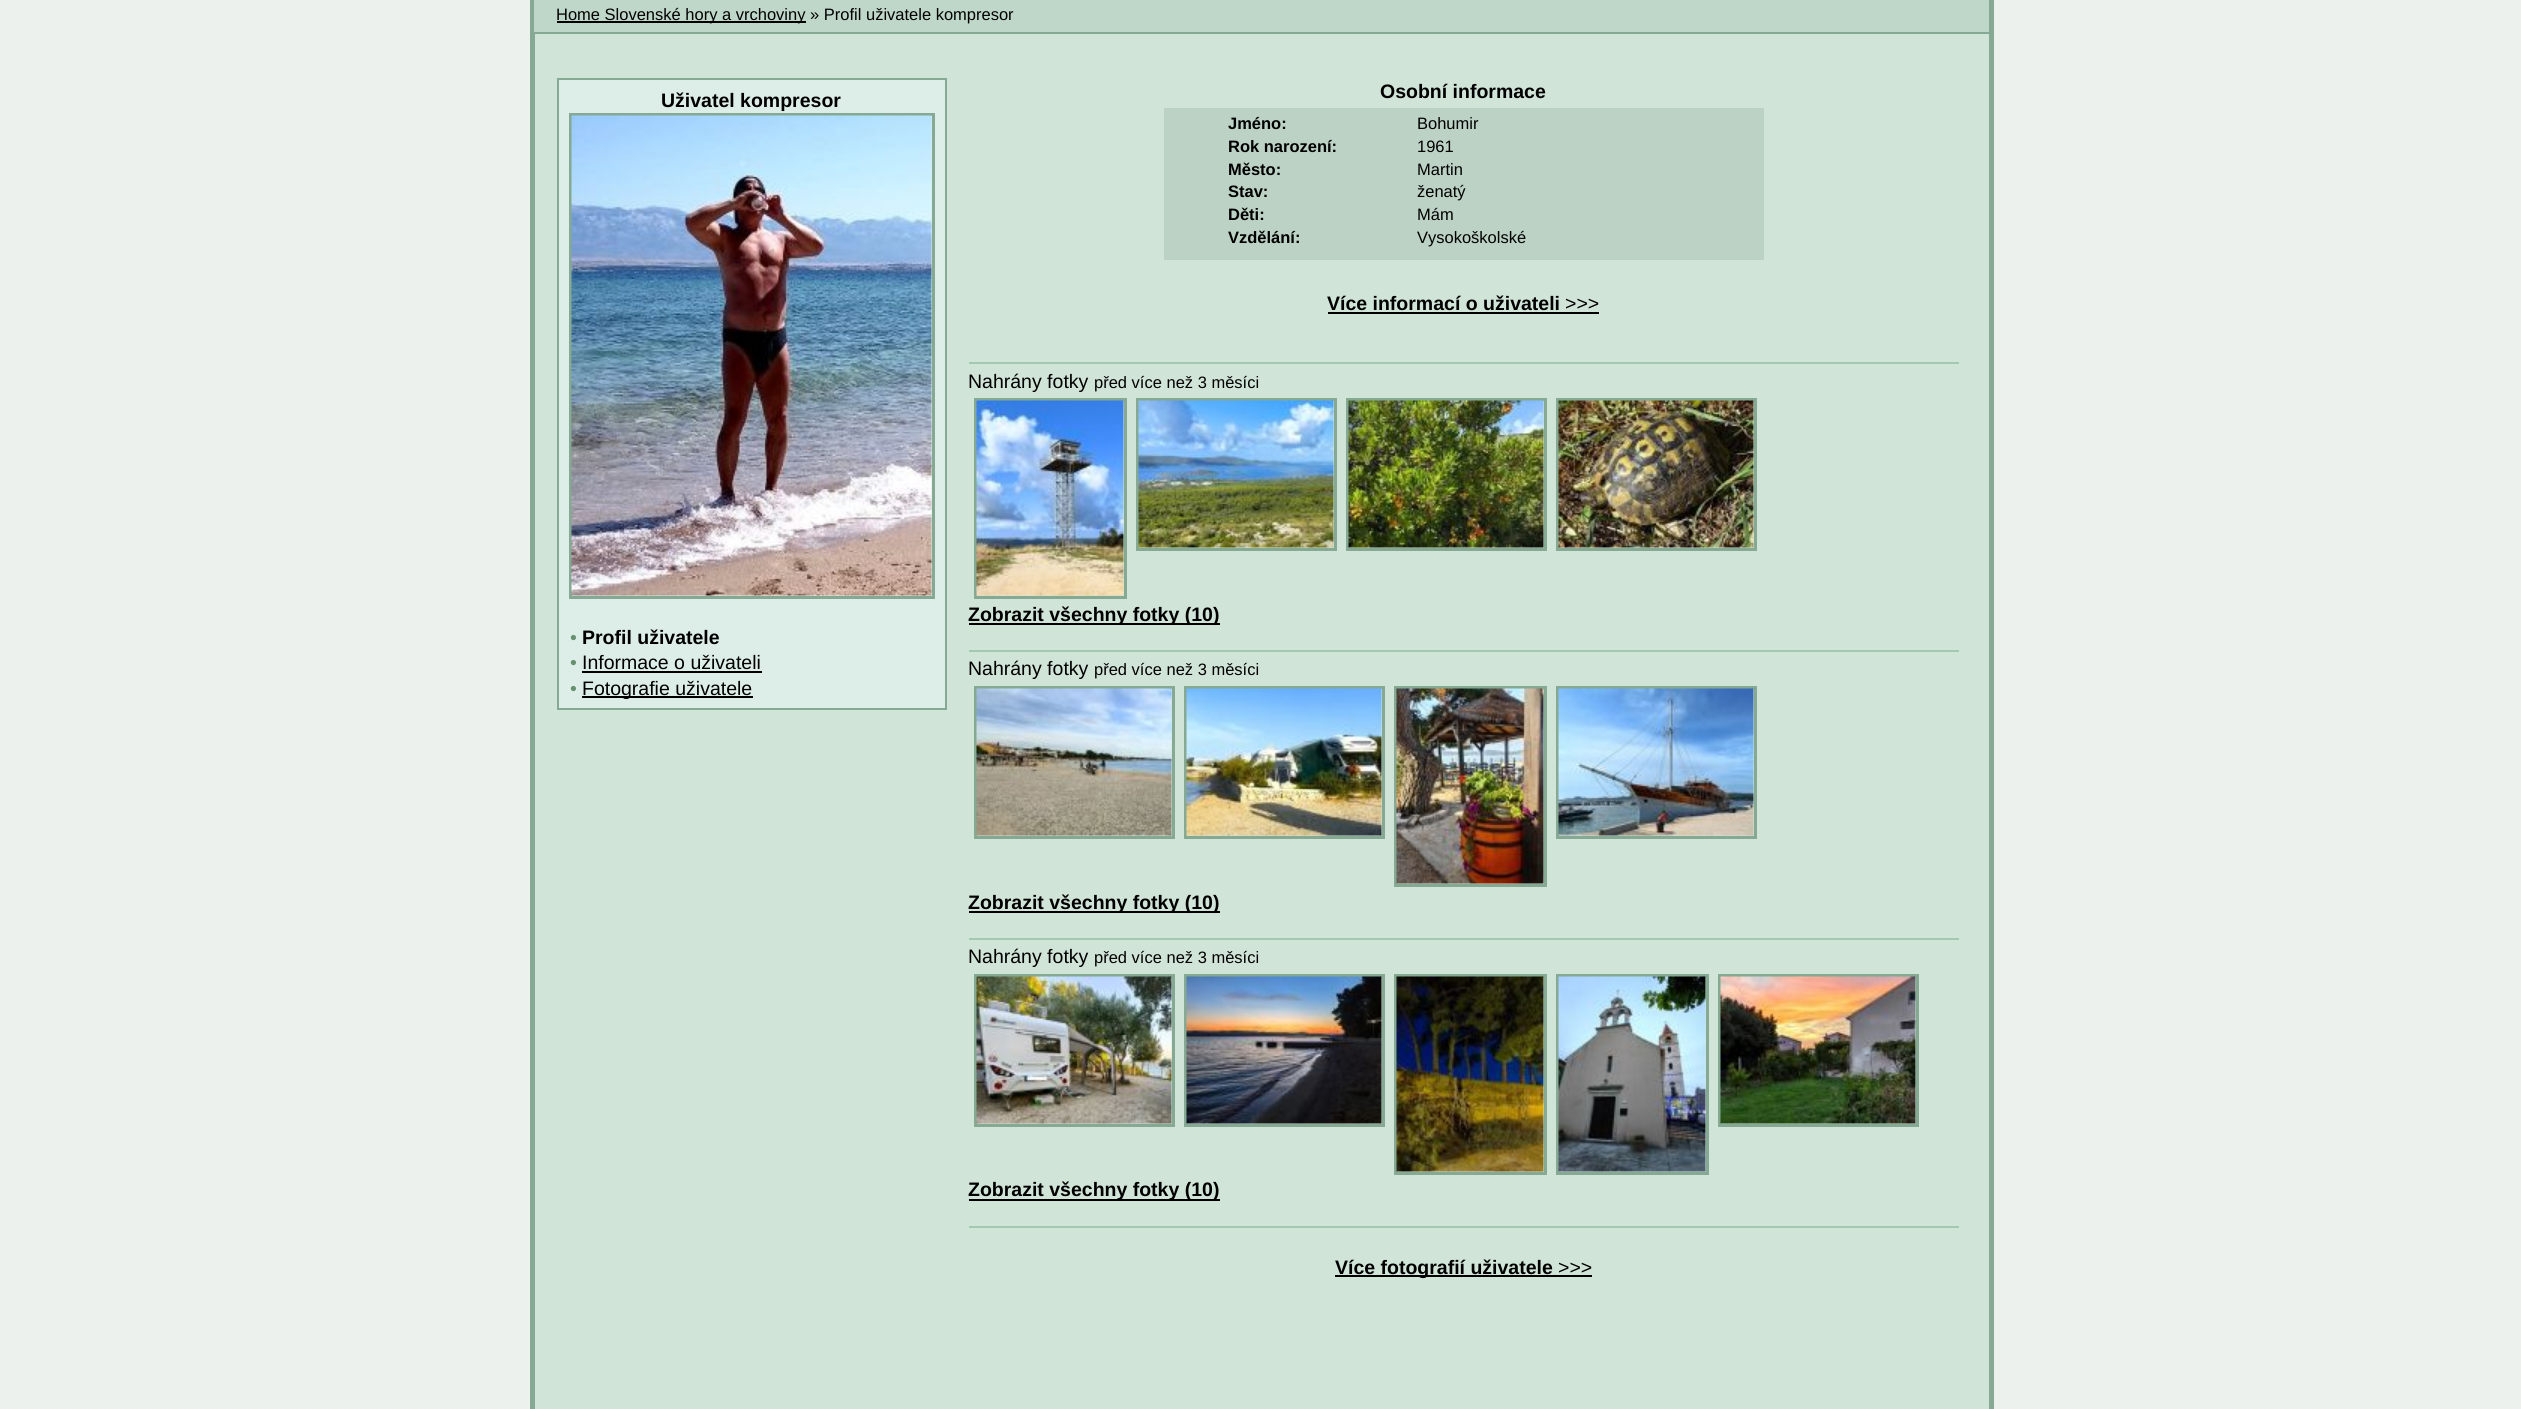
import math
import cairo



def draw_image(context, path, x, y, w, h):
    context.save()
    context.set_source_surface(cairo.ImageSurface.create_from_png(path), x, y)
    context.rectangle(x, y, w, h)
    context.fill()
    context.restore()


def draw(context):
    context.set_source_rgb(237 / 255, 241 / 255, 238 / 255)
    context.paint()
    context.set_source_rgb(209 / 255, 228 / 255, 216 / 255)
    context.rectangle(535, 34, 1454, 1375)
    context.fill()
    context.set_source_rgb(133 / 255, 169 / 255, 147 / 255)
    context.rectangle(1989, 0, 5, 1409)
    context.fill()
    context.rectangle(530, 0, 5, 1409)
    context.fill()
    context.set_source_rgb(191 / 255, 215 / 255, 200 / 255)
    context.rectangle(534, 0, 1455, 32)
    context.fill()
    context.set_source_rgb(133 / 255, 169 / 255, 147 / 255)
    context.rectangle(534, 32, 1455, 2)
    context.fill()
    context.set_source_rgb(0, 0, 0)
    context.rectangle(557, 21, 249, 2)
    context.fill()
    context.set_source_rgb(221 / 255, 238 / 255, 232 / 255)
    context.rectangle(558, 79, 388, 630)
    context.fill_preserve()
    context.set_source_rgb(133 / 255, 169 / 255, 147 / 255)
    context.stroke()
    context.rectangle(570.5, 114.5, 363, 483)
    context.set_line_width(3)
    context.stroke()
    draw_image(context, "images/1.png", 571, 115, 361, 481)
    context.set_source_rgb(0, 0, 0)
    context.rectangle(582, 671, 180, 2)
    context.fill()
    context.rectangle(582, 696, 171, 2)
    context.fill()
    context.set_source_rgb(187 / 255, 210 / 255, 197 / 255)
    context.rectangle(1164, 108, 600, 152)
    context.fill()
    context.set_source_rgb(0, 0, 0)
    context.rectangle(1328, 312, 271, 2)
    context.fill()
    context.set_source_rgb(162 / 255, 201 / 255, 177 / 255)
    context.rectangle(969, 362, 990, 2)
    context.fill()
    context.rectangle(975.5, 399.5, 150, 198)
    context.set_source_rgb(133 / 255, 169 / 255, 147 / 255)
    context.stroke()
    context.rectangle(1137.5, 399.5, 198, 150)
    context.stroke()
    context.rectangle(1347.5, 399.5, 198, 150)
    context.stroke()
    context.rectangle(1557.5, 399.5, 198, 150)
    context.stroke()
    draw_image(context, "images/2.png", 976, 400, 148, 196)
    draw_image(context, "images/3.png", 1138, 400, 196, 148)
    draw_image(context, "images/4.png", 1348, 400, 196, 148)
    draw_image(context, "images/5.png", 1558, 400, 196, 148)
    context.set_source_rgb(0, 0, 0)
    context.rectangle(969, 623, 251, 2)
    context.fill()
    context.set_source_rgb(162 / 255, 201 / 255, 177 / 255)
    context.rectangle(969, 650, 990, 2)
    context.fill()
    context.rectangle(975.5, 687.5, 198, 150)
    context.set_source_rgb(133 / 255, 169 / 255, 147 / 255)
    context.stroke()
    context.rectangle(1185.5, 687.5, 198, 150)
    context.stroke()
    context.rectangle(1395.5, 687.5, 150, 198)
    context.stroke()
    context.rectangle(1557.5, 687.5, 198, 150)
    context.stroke()
    draw_image(context, "images/6.png", 976, 688, 196, 148)
    draw_image(context, "images/7.png", 1186, 688, 196, 148)
    draw_image(context, "images/8.png", 1396, 688, 148, 196)
    draw_image(context, "images/9.png", 1558, 688, 196, 148)
    context.set_source_rgb(0, 0, 0)
    context.rectangle(969, 911, 251, 2)
    context.fill()
    context.set_source_rgb(162 / 255, 201 / 255, 177 / 255)
    context.rectangle(969, 938, 990, 2)
    context.fill()
    context.rectangle(975.5, 975.5, 198, 150)
    context.set_source_rgb(133 / 255, 169 / 255, 147 / 255)
    context.stroke()
    context.rectangle(1185.5, 975.5, 198, 150)
    context.stroke()
    context.rectangle(1395.5, 975.5, 150, 198)
    context.stroke()
    context.rectangle(1557.5, 975.5, 150, 198)
    context.stroke()
    context.rectangle(1719.5, 975.5, 198, 150)
    context.stroke()
    draw_image(context, "images/10.png", 976, 976, 196, 148)
    draw_image(context, "images/11.png", 1186, 976, 196, 148)
    draw_image(context, "images/12.png", 1396, 976, 148, 196)
    draw_image(context, "images/13.png", 1558, 976, 148, 196)
    draw_image(context, "images/14.png", 1720, 976, 196, 148)
    context.set_source_rgb(0, 0, 0)
    context.rectangle(969, 1199, 251, 2)
    context.fill()
    context.set_source_rgb(162 / 255, 201 / 255, 177 / 255)
    context.rectangle(969, 1226, 990, 2)
    context.fill()
    context.set_source_rgb(0, 0, 0)
    context.rectangle(1335, 1275, 257, 2)
    context.fill()
    context.select_font_face("Liberation Sans")
    context.set_font_size(16.5)
    context.move_to(556, 20)
    context.show_text("Home Slovenské hory a vrchoviny » Profil uživatele kompresor")
    context.select_font_face("Liberation Sans", cairo.FontSlant.NORMAL, cairo.FontWeight.BOLD)
    context.set_font_size(19.5)
    context.move_to(661, 107)
    context.show_text("Uživatel kompresor")
    context.select_font_face("Liberation Sans")
    context.set_source_rgb(103 / 255, 144 / 255, 112 / 255)
    context.move_to(570, 644)
    context.show_text("•")
    context.select_font_face("Liberation Sans", cairo.FontSlant.NORMAL, cairo.FontWeight.BOLD)
    context.set_source_rgb(0, 0, 0)
    context.move_to(582, 644)
    context.show_text("Profil uživatele")
    context.select_font_face("Liberation Sans")
    context.set_source_rgb(103 / 255, 144 / 255, 112 / 255)
    context.move_to(570, 669)
    context.show_text("•")
    context.set_source_rgb(0, 0, 0)
    context.move_to(582, 669)
    context.show_text("Informace o uživateli")
    context.set_source_rgb(103 / 255, 144 / 255, 112 / 255)
    context.move_to(570, 695)
    context.show_text("•")
    context.set_source_rgb(0, 0, 0)
    context.move_to(582, 695)
    context.show_text("Fotografie uživatele")
    context.select_font_face("Liberation Sans", cairo.FontSlant.NORMAL, cairo.FontWeight.BOLD)
    context.move_to(1380, 98)
    context.show_text("Osobní informace")
    context.set_font_size(16.5)
    context.move_to(1228, 129)
    context.show_text("Jméno:")
    context.select_font_face("Liberation Sans")
    context.move_to(1417, 129)
    context.show_text("Bohumir")
    context.select_font_face("Liberation Sans", cairo.FontSlant.NORMAL, cairo.FontWeight.BOLD)
    context.move_to(1228, 152)
    context.show_text("Rok narození:")
    context.select_font_face("Liberation Sans")
    context.move_to(1417, 152)
    context.show_text("1961")
    context.select_font_face("Liberation Sans", cairo.FontSlant.NORMAL, cairo.FontWeight.BOLD)
    context.move_to(1228, 175)
    context.show_text("Město:")
    context.select_font_face("Liberation Sans")
    context.move_to(1417, 175)
    context.show_text("Martin")
    context.select_font_face("Liberation Sans", cairo.FontSlant.NORMAL, cairo.FontWeight.BOLD)
    context.move_to(1228, 197)
    context.show_text("Stav:")
    context.select_font_face("Liberation Sans")
    context.move_to(1417, 197)
    context.show_text("ženatý")
    context.select_font_face("Liberation Sans", cairo.FontSlant.NORMAL, cairo.FontWeight.BOLD)
    context.move_to(1228, 220)
    context.show_text("Děti:")
    context.select_font_face("Liberation Sans")
    context.move_to(1417, 220)
    context.show_text("Mám")
    context.select_font_face("Liberation Sans", cairo.FontSlant.NORMAL, cairo.FontWeight.BOLD)
    context.move_to(1228, 243)
    context.show_text("Vzdělání:")
    context.select_font_face("Liberation Sans")
    context.move_to(1417, 243)
    context.show_text("Vysokoškolské")
    context.select_font_face("Liberation Sans", cairo.FontSlant.NORMAL, cairo.FontWeight.BOLD)
    context.set_font_size(19.5)
    context.move_to(1327, 310)
    context.show_text("Více informací o uživateli")
    context.select_font_face("Liberation Sans")
    context.move_to(1565, 310)
    context.show_text(">>>")
    context.move_to(968, 388)
    context.show_text("Nahrány fotky")
    context.set_font_size(16.5)
    context.move_to(1094, 388)
    context.show_text("před více než 3 měsíci")
    context.select_font_face("Liberation Sans", cairo.FontSlant.NORMAL, cairo.FontWeight.BOLD)
    context.set_font_size(19.5)
    context.move_to(968, 621)
    context.show_text("Zobrazit všechny fotky (10)")
    context.select_font_face("Liberation Sans")
    context.move_to(968, 675)
    context.show_text("Nahrány fotky")
    context.set_font_size(16.5)
    context.move_to(1094, 675)
    context.show_text("před více než 3 měsíci")
    context.select_font_face("Liberation Sans", cairo.FontSlant.NORMAL, cairo.FontWeight.BOLD)
    context.set_font_size(19.5)
    context.move_to(968, 909)
    context.show_text("Zobrazit všechny fotky (10)")
    context.select_font_face("Liberation Sans")
    context.move_to(968, 963)
    context.show_text("Nahrány fotky")
    context.set_font_size(16.5)
    context.move_to(1094, 963)
    context.show_text("před více než 3 měsíci")
    context.select_font_face("Liberation Sans", cairo.FontSlant.NORMAL, cairo.FontWeight.BOLD)
    context.set_font_size(19.5)
    context.move_to(968, 1196)
    context.show_text("Zobrazit všechny fotky (10)")
    context.move_to(1335, 1274)
    context.show_text("Více fotografií uživatele")
    context.select_font_face("Liberation Sans")
    context.move_to(1558, 1274)
    context.show_text(">>>")


surface = cairo.ImageSurface(cairo.Format.RGB24, 2521, 1409)
context = cairo.Context(surface)
options = cairo.FontOptions()
options.set_hint_metrics(cairo.HintMetrics.OFF)
options.set_hint_style(cairo.HintStyle.NONE)
context.set_font_options(options)
context.set_miter_limit(4)
draw(context)
surface.write_to_png("out.png")
